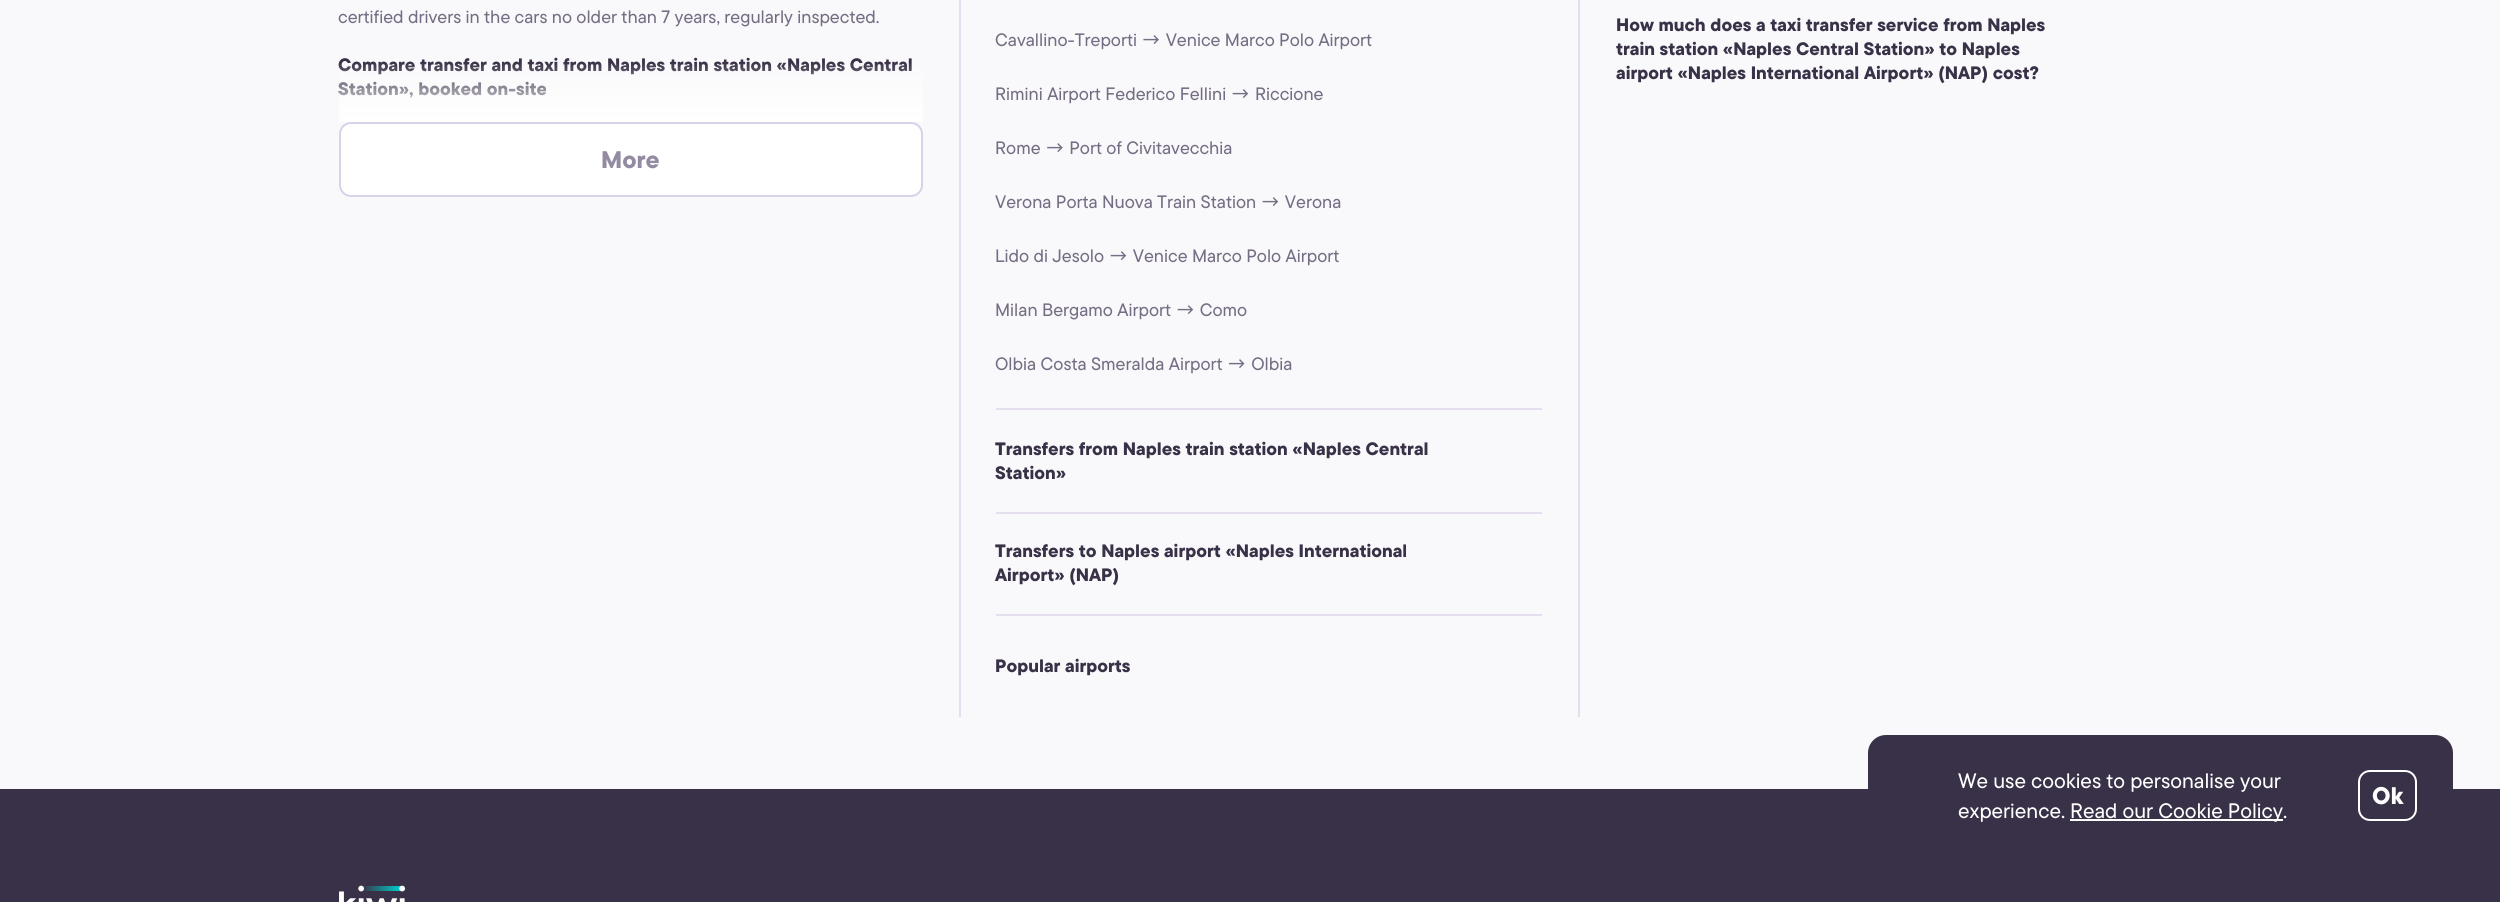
import math
import cairo



def rounded_rect(context, x, y, w, h, r):
    context.new_sub_path()
    for i, (u, v) in enumerate([(x + w - r, y + h - r), (x + r, y + h - r), (x + r, y + r), (x + w - r, y + r)]):
        context.arc(u, v, r, i * math.pi / 2, (i + 1) * math.pi / 2)
    context.close_path()


def draw_image(context, path, x, y, w, h):
    context.save()
    context.set_source_surface(cairo.ImageSurface.create_from_png(path), x, y)
    context.rectangle(x, y, w, h)
    context.fill()
    context.restore()


def draw(context):
    context.set_source_rgb(57 / 255, 49 / 255, 71 / 255)
    context.paint()
    context.set_source_rgb(249 / 255, 249 / 255, 251 / 255)
    context.rectangle(0, 0, 2500, 789)
    context.fill()
    context.set_source_rgb(1, 1, 1)
    rounded_rect(context, 340, 123, 582, 73, 11)
    context.fill_preserve()
    context.set_source_rgb(217 / 255, 209 / 255, 231 / 255)
    context.stroke()
    context.set_source_rgb(228 / 255, 222 / 255, 238 / 255)
    context.rectangle(959, 0, 2, 717)
    context.fill()
    context.rectangle(996, 408, 546, 2)
    context.fill()
    context.rectangle(996, 512, 546, 2)
    context.fill()
    context.rectangle(996, 614, 546, 2)
    context.fill()
    context.rectangle(1578, 0, 2, 717)
    context.fill()
    context.set_source_rgb(57 / 255, 49 / 255, 71 / 255)
    rounded_rect(context, 1868, 735, 585, 120, 18)
    context.fill()
    context.set_source_rgb(1, 1, 1)
    context.rectangle(2070, 819, 213, 2)
    context.fill()
    rounded_rect(context, 2359, 771, 57, 49, 11)
    context.stroke()
    draw_image(context, "images/1.png", 339, 885, 67, 17)
    context.select_font_face("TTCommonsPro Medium")
    context.set_font_size(18)
    context.set_source_rgb(117 / 255, 109 / 255, 131 / 255)
    context.move_to(338, 23)
    context.show_text("certified drivers in the cars no older than 7 years, regularly inspected.")
    context.select_font_face("TTCommonsPro ExtraBold")
    context.set_source_rgb(57 / 255, 49 / 255, 71 / 255)
    context.move_to(338, 71)
    context.show_text("Compare transfer and taxi from Naples train station «Naples Central")
    context.move_to(338, 95)
    context.show_text("Station», booked on-site")
    gradient = cairo.LinearGradient(631, 122, 631, 62)
    gradient.add_color_stop_rgba(0, 1, 1, 1, 1)
    gradient.add_color_stop_rgba(1, 1, 1, 1, 0)
    context.set_source(gradient)
    context.rectangle(339, 63, 584, 59)
    context.fill()
    context.set_font_size(24)
    context.set_source_rgb(147 / 255, 139 / 255, 161 / 255)
    context.move_to(601, 168)
    context.show_text("More")
    context.select_font_face("TTCommonsPro Medium")
    context.set_font_size(18)
    context.set_source_rgb(117 / 255, 109 / 255, 131 / 255)
    context.move_to(995, 46)
    context.show_text("Cavallino-Treporti → Venice Marco Polo Airport")
    context.move_to(995, 100)
    context.show_text("Rimini Airport Federico Fellini → Riccione")
    context.move_to(995, 154)
    context.show_text("Rome → Port of Civitavecchia")
    context.move_to(995, 208)
    context.show_text("Verona Porta Nuova Train Station → Verona")
    context.move_to(995, 262)
    context.show_text("Lido di Jesolo → Venice Marco Polo Airport")
    context.move_to(995, 316)
    context.show_text("Milan Bergamo Airport → Como")
    context.move_to(995, 370)
    context.show_text("Olbia Costa Smeralda Airport → Olbia")
    context.select_font_face("TTCommonsPro ExtraBold")
    context.set_source_rgb(57 / 255, 49 / 255, 71 / 255)
    context.move_to(995, 455)
    context.show_text("Transfers from Naples train station «Naples Central")
    context.move_to(995, 479)
    context.show_text("Station»")
    context.move_to(995, 557)
    context.show_text("Transfers to Naples airport «Naples International")
    context.move_to(995, 581)
    context.show_text("Airport» (NAP)")
    context.move_to(995, 672)
    context.show_text("Popular airports")
    context.move_to(1616, 31)
    context.show_text("How much does a taxi transfer service from Naples")
    context.move_to(1616, 55)
    context.show_text("train station «Naples Central Station» to Naples")
    context.move_to(1616, 79)
    context.show_text("airport «Naples International Airport» (NAP) cost?")
    context.select_font_face("TTCommonsPro Medium")
    context.set_font_size(21)
    context.set_source_rgb(1, 1, 1)
    context.move_to(1958, 788)
    context.show_text("We use cookies to personalise your")
    context.move_to(1958, 818)
    context.show_text("experience.")
    context.move_to(2070, 818)
    context.show_text("Read our Cookie Policy.")
    context.select_font_face("TTCommonsPro ExtraBold")
    context.set_font_size(24)
    context.move_to(2372, 804)
    context.show_text("Ok")


surface = cairo.ImageSurface(cairo.Format.RGB24, 2500, 902)
context = cairo.Context(surface)
options = cairo.FontOptions()
options.set_hint_metrics(cairo.HintMetrics.OFF)
options.set_hint_style(cairo.HintStyle.NONE)
context.set_font_options(options)
context.set_miter_limit(4)
draw(context)
surface.write_to_png("out.png")
